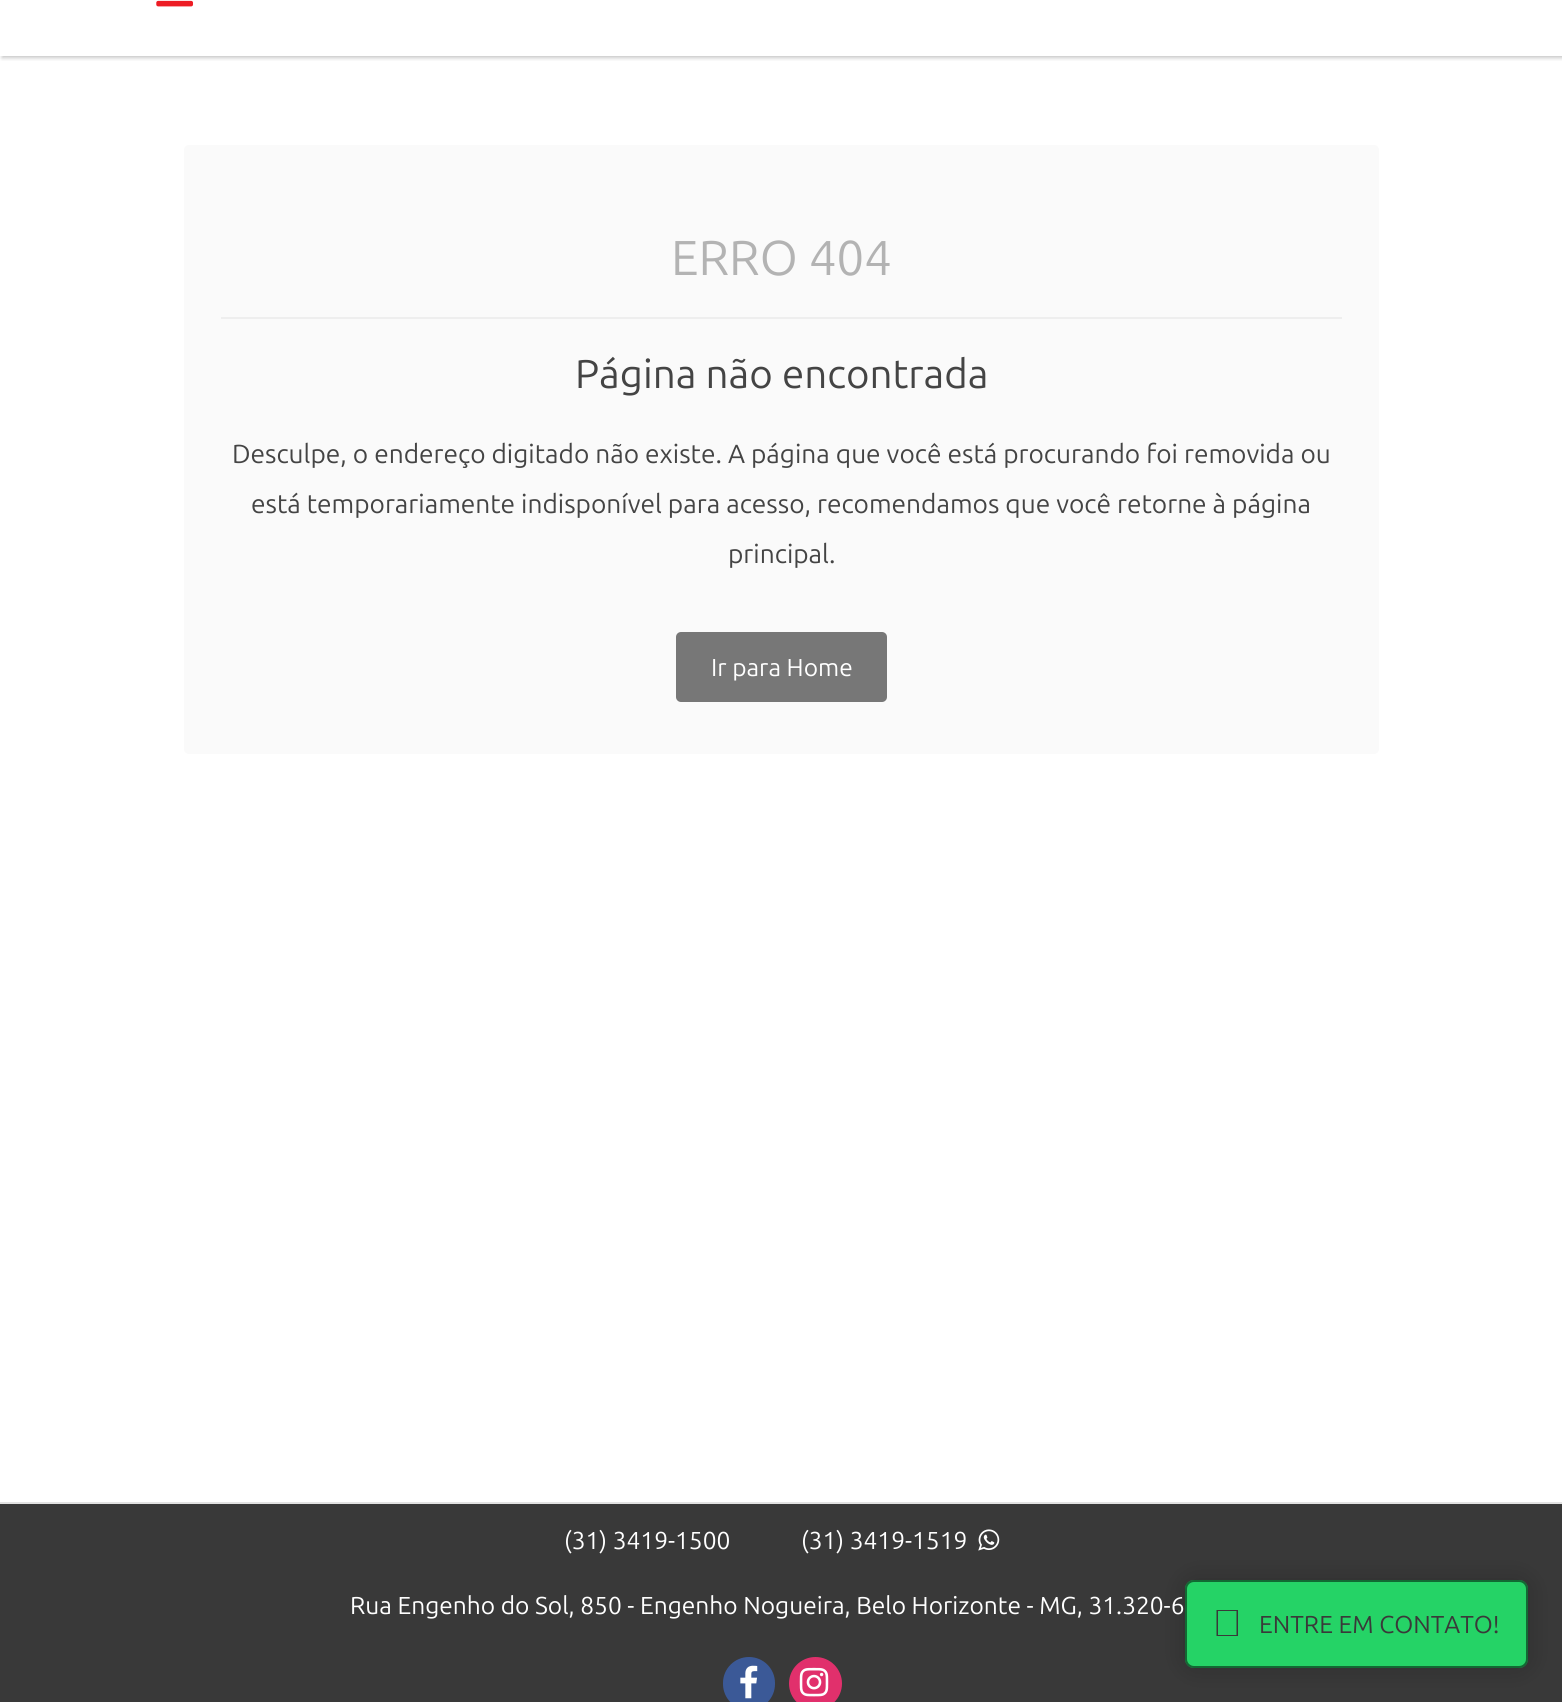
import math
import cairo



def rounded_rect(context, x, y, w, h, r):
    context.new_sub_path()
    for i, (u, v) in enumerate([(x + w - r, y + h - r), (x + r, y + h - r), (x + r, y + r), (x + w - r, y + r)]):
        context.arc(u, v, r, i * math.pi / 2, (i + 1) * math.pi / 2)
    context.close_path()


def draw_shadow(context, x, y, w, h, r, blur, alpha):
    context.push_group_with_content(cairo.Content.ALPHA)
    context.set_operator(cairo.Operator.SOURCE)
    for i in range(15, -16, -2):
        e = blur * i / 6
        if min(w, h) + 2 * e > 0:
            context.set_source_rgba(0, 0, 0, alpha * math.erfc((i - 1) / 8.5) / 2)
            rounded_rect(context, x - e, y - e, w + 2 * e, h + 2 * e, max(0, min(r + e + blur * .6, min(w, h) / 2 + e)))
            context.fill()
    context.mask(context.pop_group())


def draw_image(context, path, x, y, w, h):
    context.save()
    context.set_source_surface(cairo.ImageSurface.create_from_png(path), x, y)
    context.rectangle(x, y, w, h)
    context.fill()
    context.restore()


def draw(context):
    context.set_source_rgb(1, 1, 1)
    context.paint()
    context.save()
    context.rectangle(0, 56, 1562, 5)
    context.clip()
    context.set_source_rgb(0, 0, 0)
    draw_shadow(context, 2, -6, 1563, 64, 0, 2, 0.22)
    context.restore()
    draw_image(context, "images/1.png", 156, 0, 38, 7)
    context.set_source_rgb(250 / 255, 250 / 255, 250 / 255)
    rounded_rect(context, 184, 145, 1195, 609, 5)
    context.fill()
    context.set_source_rgb(238 / 255, 238 / 255, 238 / 255)
    context.rectangle(221, 317, 1121, 2)
    context.fill()
    context.set_source_rgb(119 / 255, 119 / 255, 119 / 255)
    rounded_rect(context, 676, 632, 211, 70, 5)
    context.fill()
    context.set_source_rgb(57 / 255, 57 / 255, 57 / 255)
    context.rectangle(0, 1504, 1562, 198)
    context.fill()
    context.set_source_rgb(226 / 255, 226 / 255, 226 / 255)
    context.rectangle(0, 1502, 1562, 2)
    context.fill()
    draw_image(context, "images/2.png", 978, 1529, 22, 22)
    context.set_source_rgb(59 / 255, 89 / 255, 151 / 255)
    rounded_rect(context, 723, 1657, 52, 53, 26)
    context.fill()
    draw_image(context, "images/3.png", 740, 1665, 18, 34)
    context.set_source_rgb(225 / 255, 48 / 255, 108 / 255)
    context.arc(815.5, 1683.5, 26.5, 0, 2 * math.pi)
    context.fill()
    draw_image(context, "images/4.png", 799, 1667, 30, 30)
    context.set_source_rgb(0, 0, 0)
    draw_shadow(context, 1185, 1580, 343, 88, 9, 13, 0.2)
    context.set_source_rgb(37 / 255, 211 / 255, 102 / 255)
    rounded_rect(context, 1185, 1580, 343, 88, 9)
    context.fill()
    rounded_rect(context, 1186, 1581, 341, 86, 8)
    context.set_source_rgba(0, 0, 0, 0.5)
    context.stroke()
    context.set_source_rgb(57 / 255, 57 / 255, 57 / 255)
    context.new_path()
    context.move_to(1216.5, 1610)
    context.line_to(1238, 1610)
    context.line_to(1238, 1636)
    context.line_to(1216.5, 1636)
    context.close_path()
    context.move_to(1218, 1611)
    context.line_to(1218, 1635)
    context.line_to(1236.5, 1635)
    context.line_to(1236.5, 1611)
    context.close_path()
    context.fill()
    context.select_font_face("Ubuntu")
    context.set_font_size(49)
    context.set_source_rgb(179 / 255, 179 / 255, 179 / 255)
    context.move_to(671, 275)
    context.show_text("ERRO 404")
    context.set_font_size(40.25)
    context.set_source_rgb(68 / 255, 68 / 255, 68 / 255)
    context.move_to(575, 388)
    context.show_text("Página não encontrada")
    context.set_font_size(26.25)
    context.move_to(232, 463)
    context.show_text("Desculpe, o endereço digitado não existe. A página que você está procurando foi removida ou")
    context.move_to(251, 513)
    context.show_text("está temporariamente indisponível para acesso, recomendamos que você retorne à página")
    context.move_to(728, 563)
    context.show_text("principal.")
    context.set_font_size(24.5)
    context.set_source_rgb(1, 1, 1)
    context.move_to(711, 676)
    context.show_text("Ir para Home")
    context.move_to(564, 1549)
    context.show_text("(31) 3419-1500")
    context.move_to(801, 1549)
    context.show_text("(31) 3419-1519")
    context.move_to(350, 1614)
    context.show_text("Rua Engenho do Sol, 850 - Engenho Nogueira, Belo Horizonte - MG, 31.320-6")
    context.set_source_rgb(57 / 255, 57 / 255, 57 / 255)
    context.move_to(1259, 1633)
    context.show_text("ENTRE EM CONTATO!")


surface = cairo.ImageSurface(cairo.Format.RGB24, 1562, 1702)
context = cairo.Context(surface)
options = cairo.FontOptions()
options.set_hint_metrics(cairo.HintMetrics.OFF)
options.set_hint_style(cairo.HintStyle.NONE)
context.set_font_options(options)
context.set_miter_limit(4)
draw(context)
surface.write_to_png("out.png")
